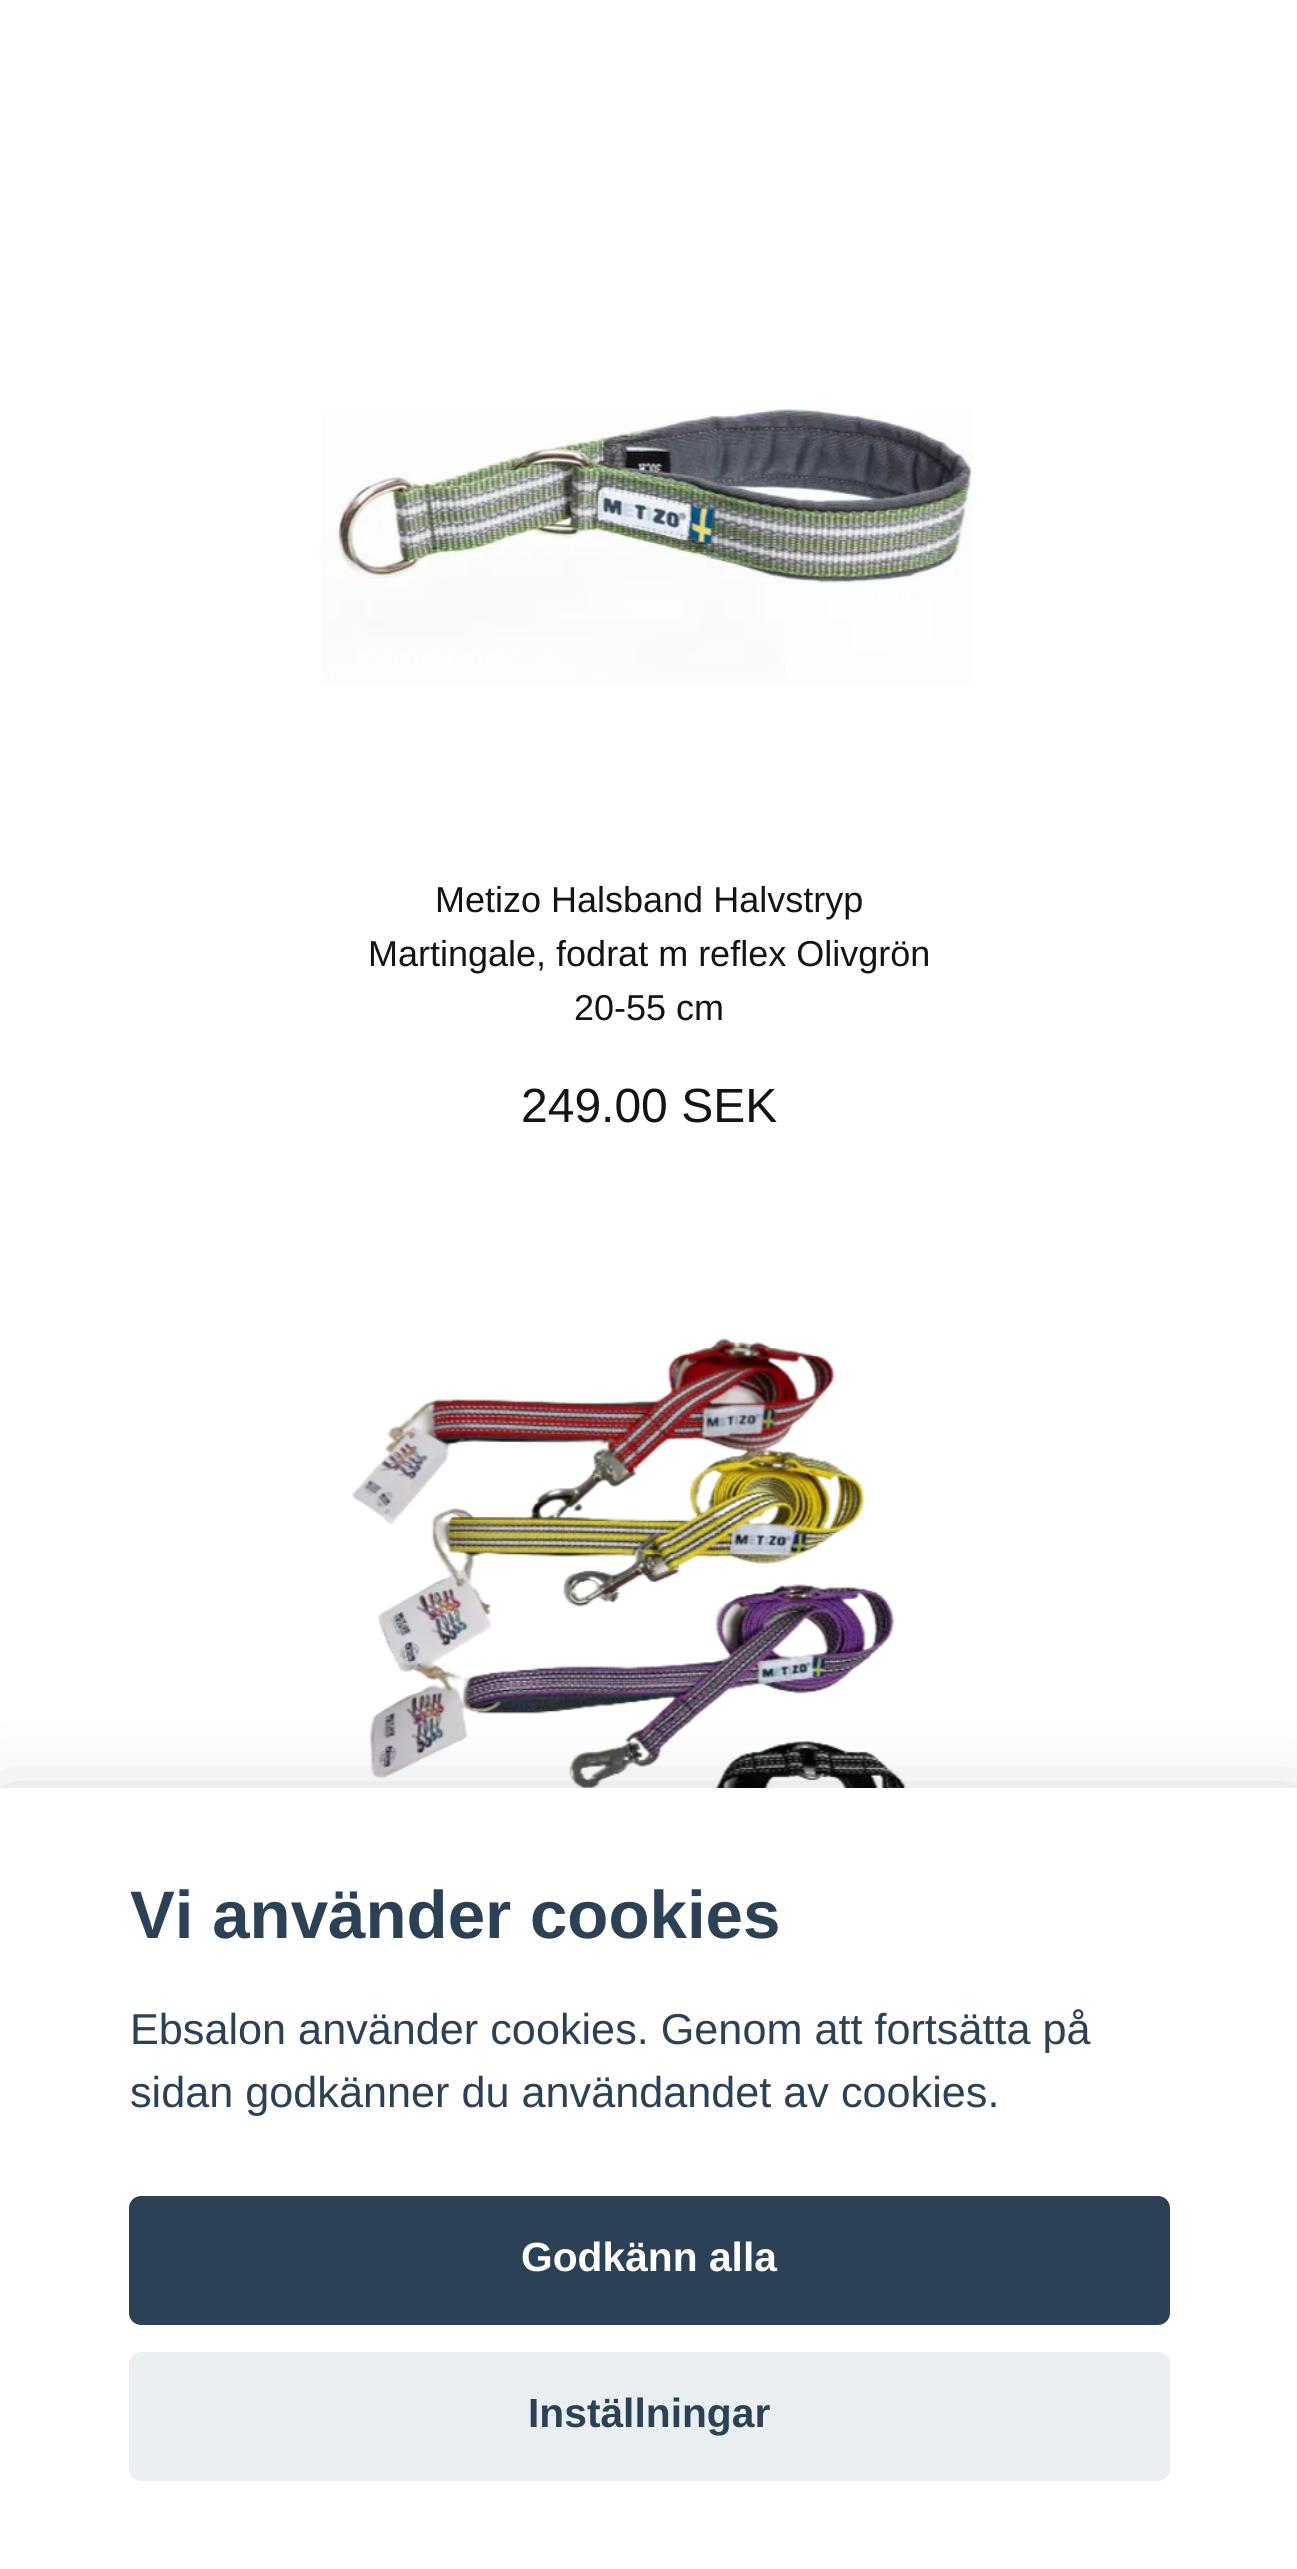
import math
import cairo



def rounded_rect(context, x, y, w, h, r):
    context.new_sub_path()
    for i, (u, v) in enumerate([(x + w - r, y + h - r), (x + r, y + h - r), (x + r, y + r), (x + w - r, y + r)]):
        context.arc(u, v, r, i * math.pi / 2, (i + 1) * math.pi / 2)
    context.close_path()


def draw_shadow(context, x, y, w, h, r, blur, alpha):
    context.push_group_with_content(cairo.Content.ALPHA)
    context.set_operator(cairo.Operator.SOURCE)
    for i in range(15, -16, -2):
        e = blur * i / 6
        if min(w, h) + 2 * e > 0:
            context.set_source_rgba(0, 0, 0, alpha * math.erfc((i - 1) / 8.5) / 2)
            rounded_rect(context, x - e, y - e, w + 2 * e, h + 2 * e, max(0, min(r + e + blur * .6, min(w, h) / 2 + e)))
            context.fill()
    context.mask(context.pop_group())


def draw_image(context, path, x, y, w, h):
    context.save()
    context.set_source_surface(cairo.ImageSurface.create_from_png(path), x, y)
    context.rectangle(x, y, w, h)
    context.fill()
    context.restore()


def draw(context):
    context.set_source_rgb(1, 1, 1)
    context.paint()
    draw_image(context, "images/1.png", 321, 409, 651, 275)
    draw_image(context, "images/2.png", 351, 1338, 556, 450)
    context.set_source_rgb(2 / 255, 2 / 255, 3 / 255)
    draw_shadow(context, 0, 1818, 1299, 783, 0, 45, 0.28)
    context.set_source_rgb(1, 1, 1)
    context.rectangle(0, 1788, 1297, 781)
    context.fill()
    context.set_source_rgb(45 / 255, 65 / 255, 86 / 255)
    rounded_rect(context, 129, 2196, 1041, 129, 12)
    context.fill()
    context.set_source_rgb(234 / 255, 239 / 255, 242 / 255)
    rounded_rect(context, 129, 2352, 1041, 129, 12)
    context.fill()
    context.select_font_face("Liberation Sans")
    context.set_font_size(36)
    context.set_source_rgb(20 / 255, 20 / 255, 20 / 255)
    context.move_to(435, 912)
    context.show_text("Metizo Halsband Halvstryp")
    context.move_to(368, 966)
    context.show_text("Martingale, fodrat m reflex Olivgrön")
    context.move_to(574, 1020)
    context.show_text("20-55 cm")
    context.set_font_size(48)
    context.move_to(521, 1122)
    context.show_text("249.00 SEK")
    context.select_font_face("Liberation Sans", cairo.FontSlant.NORMAL, cairo.FontWeight.BOLD)
    context.set_font_size(67.25)
    context.set_source_rgb(45 / 255, 65 / 255, 86 / 255)
    context.move_to(130, 1938)
    context.show_text("Vi använder cookies")
    context.select_font_face("Liberation Sans")
    context.set_font_size(43.2)
    context.move_to(130, 2044)
    context.show_text("Ebsalon använder cookies. Genom att fortsätta på")
    context.move_to(130, 2107)
    context.show_text("sidan godkänner du användandet av cookies.")
    context.select_font_face("Liberation Sans", cairo.FontSlant.NORMAL, cairo.FontWeight.BOLD)
    context.set_font_size(40.75)
    context.set_source_rgb(1, 1, 1)
    context.move_to(521, 2271)
    context.show_text("Godkänn alla")
    context.set_source_rgb(45 / 255, 65 / 255, 86 / 255)
    context.move_to(528, 2427)
    context.show_text("Inställningar")


surface = cairo.ImageSurface(cairo.Format.RGB24, 1297, 2569)
context = cairo.Context(surface)
options = cairo.FontOptions()
options.set_hint_metrics(cairo.HintMetrics.OFF)
options.set_hint_style(cairo.HintStyle.NONE)
context.set_font_options(options)
context.set_miter_limit(4)
draw(context)
surface.write_to_png("out.png")
